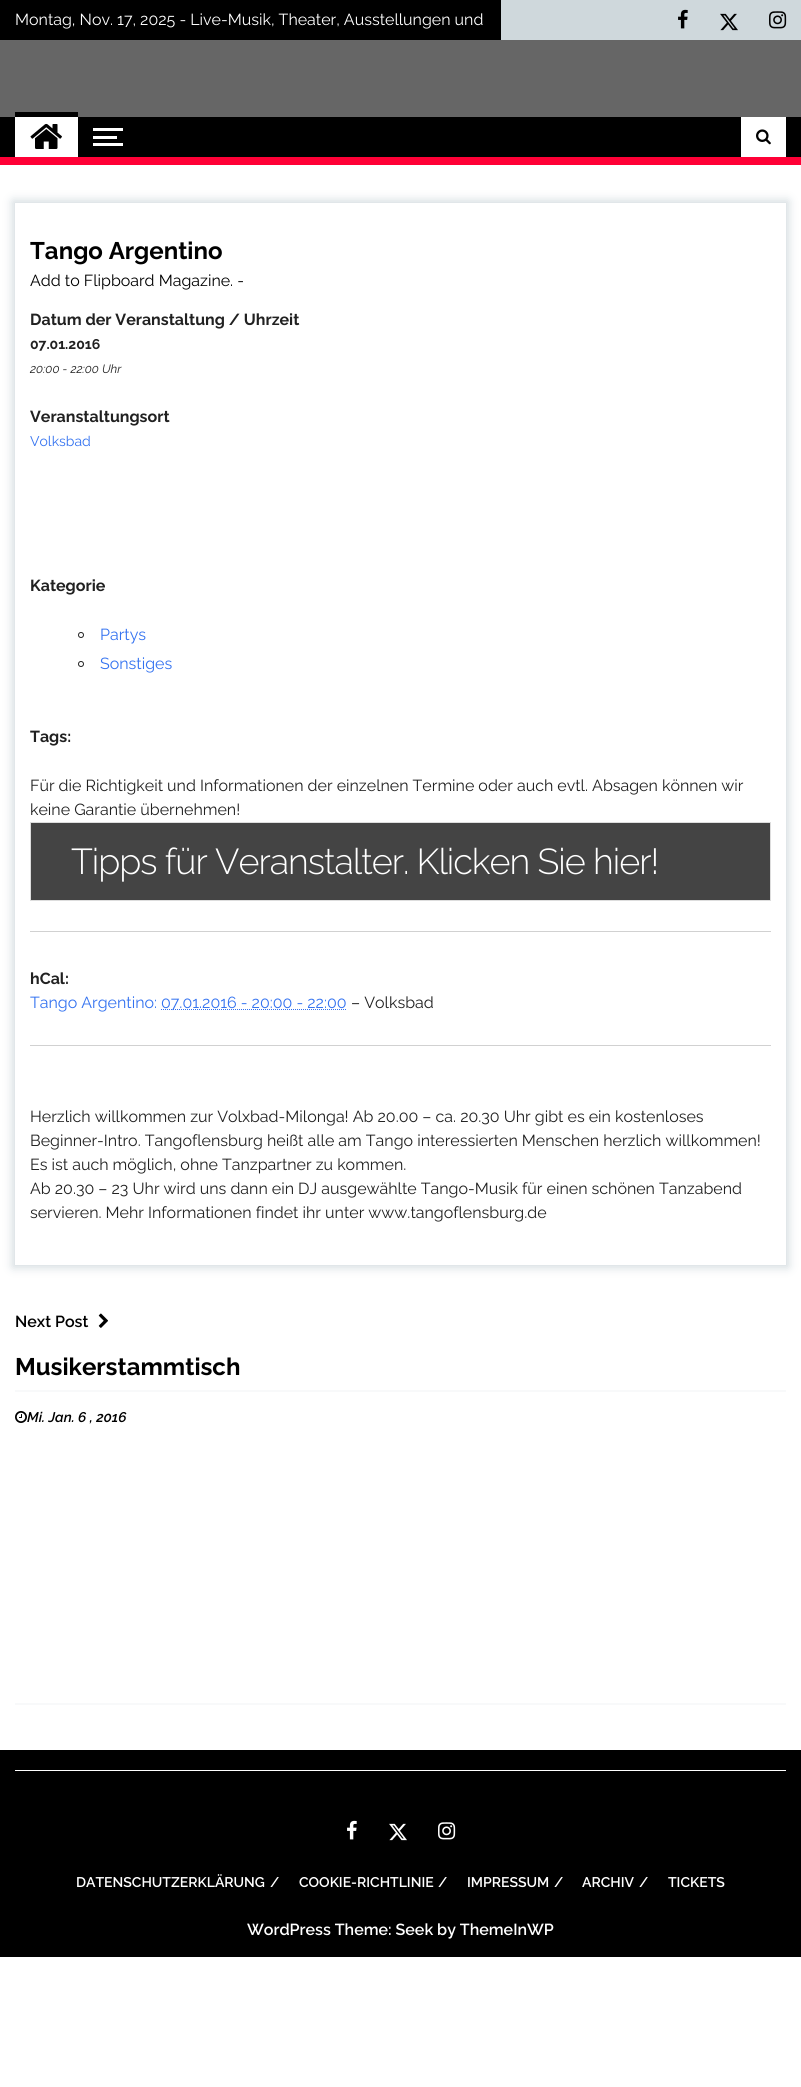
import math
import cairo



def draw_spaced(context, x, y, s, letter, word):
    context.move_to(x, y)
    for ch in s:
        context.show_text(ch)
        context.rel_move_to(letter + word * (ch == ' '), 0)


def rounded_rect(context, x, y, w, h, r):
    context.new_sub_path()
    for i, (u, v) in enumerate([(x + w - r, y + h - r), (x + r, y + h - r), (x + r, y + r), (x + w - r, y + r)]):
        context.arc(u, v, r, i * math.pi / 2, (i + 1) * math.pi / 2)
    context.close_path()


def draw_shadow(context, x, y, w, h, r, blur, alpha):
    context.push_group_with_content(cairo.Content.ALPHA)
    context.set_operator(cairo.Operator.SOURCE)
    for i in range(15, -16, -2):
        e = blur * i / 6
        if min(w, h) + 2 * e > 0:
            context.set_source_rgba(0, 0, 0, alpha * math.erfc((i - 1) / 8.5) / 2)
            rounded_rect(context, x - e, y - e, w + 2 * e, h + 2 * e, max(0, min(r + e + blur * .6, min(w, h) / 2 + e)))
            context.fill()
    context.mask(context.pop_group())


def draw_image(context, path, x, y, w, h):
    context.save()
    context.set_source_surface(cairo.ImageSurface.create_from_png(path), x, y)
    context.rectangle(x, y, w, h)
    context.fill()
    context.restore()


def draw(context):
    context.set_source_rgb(1, 1, 1)
    context.paint()
    context.set_source_rgb(207 / 255, 216 / 255, 220 / 255)
    context.rectangle(501, 0, 300, 40)
    context.fill()
    context.set_source_rgb(0, 0, 0)
    context.rectangle(0, 0, 501, 40)
    context.fill()
    draw_image(context, "images/1.png", 678, 9, 10, 20)
    draw_image(context, "images/2.png", 720, 13, 18, 18)
    draw_image(context, "images/3.png", 769, 11, 18, 18)
    context.set_source_rgb(102 / 255, 102 / 255, 102 / 255)
    context.rectangle(0, 40, 801, 77)
    context.fill()
    context.set_source_rgb(0, 0, 0)
    context.rectangle(0, 117, 801, 40)
    context.fill()
    context.set_source_rgb(1, 1, 1)
    context.rectangle(15, 117, 63, 40)
    context.fill()
    context.set_source_rgb(0, 0, 0)
    context.rectangle(15, 112, 63, 5)
    context.fill()
    draw_image(context, "images/4.png", 30, 123, 32, 26)
    context.set_source_rgb(1, 1, 1)
    context.rectangle(93, 128, 30, 3)
    context.fill()
    context.rectangle(93, 143, 30, 3)
    context.fill()
    context.rectangle(93, 136, 24, 3)
    context.fill()
    context.rectangle(741, 117, 45, 40)
    context.fill()
    draw_image(context, "images/5.png", 756, 129, 15, 16)
    context.set_source_rgb(1, 0, 54 / 255)
    context.rectangle(0, 157, 801, 8)
    context.fill()
    context.save()
    context.set_fill_rule(cairo.FillRule.EVEN_ODD)
    context.new_path()
    context.move_to(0, 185)
    context.line_to(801, 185)
    context.line_to(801, 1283)
    context.line_to(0, 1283)
    context.close_path()
    context.move_to(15, 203)
    context.line_to(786, 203)
    context.line_to(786, 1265)
    context.line_to(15, 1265)
    context.close_path()
    context.clip()
    context.set_source_rgb(207 / 255, 216 / 255, 220 / 255)
    draw_shadow(context, 13, 201, 775, 1066, 0, 5, 1)
    context.restore()
    context.arc(81, 635, 2.5, 0, 2 * math.pi)
    context.set_source_rgb(33 / 255, 33 / 255, 33 / 255)
    context.set_line_width(1)
    context.stroke()
    context.arc(81, 664, 2.5, 0, 2 * math.pi)
    context.stroke()
    context.set_source_rgb(68 / 255, 68 / 255, 68 / 255)
    context.rectangle(30.5, 822.5, 740, 78)
    context.fill_preserve()
    context.set_source_rgb(221 / 255, 221 / 255, 221 / 255)
    context.stroke()
    context.set_source_rgb(209 / 255, 209 / 255, 209 / 255)
    context.rectangle(30, 931, 741, 1)
    context.fill()
    context.new_path()
    context.move_to(161, 1009.5)
    context.line_to(346.5, 1009.5)
    context.set_source_rgb(51 / 255, 114 / 255, 240 / 255)
    context.set_dash([1, 1])
    context.stroke()
    context.set_source_rgb(209 / 255, 209 / 255, 209 / 255)
    context.rectangle(30, 1045, 741, 1)
    context.fill()
    context.set_source_rgb(248 / 255, 249 / 255, 250 / 255)
    context.rectangle(15, 1703, 771, 2)
    context.fill()
    draw_image(context, "images/6.png", 98, 1313, 10, 15)
    context.rectangle(15, 1390, 771, 2)
    context.fill()
    draw_image(context, "images/7.png", 15, 1411, 12, 12)
    context.set_source_rgb(0, 0, 0)
    context.rectangle(0, 1750, 801, 207)
    context.fill()
    context.set_source_rgb(1, 1, 1)
    context.rectangle(15, 1770, 771, 1)
    context.fill()
    draw_image(context, "images/8.png", 347, 1820, 10, 20)
    draw_image(context, "images/9.png", 389, 1823, 18, 18)
    draw_image(context, "images/10.png", 438, 1822, 18, 18)
    context.select_font_face("Raleway")
    context.set_font_size(16)
    context.move_to(15, 25)
    context.show_text("Montag, Nov. 17, 2025 - Live-Musik, Theater, Ausstellungen und")
    context.select_font_face("Raleway", cairo.FontSlant.NORMAL, cairo.FontWeight.BOLD)
    context.set_font_size(24)
    context.set_source_rgb(0, 0, 0)
    context.move_to(30, 259)
    context.show_text("Tango Argentino")
    context.select_font_face("Raleway")
    context.set_font_size(16)
    context.move_to(30, 286)
    context.show_text("Add to Flipboard Magazine. -")
    context.select_font_face("Raleway", cairo.FontSlant.NORMAL, cairo.FontWeight.BOLD)
    context.set_source_rgb(33 / 255, 33 / 255, 33 / 255)
    context.move_to(30, 325)
    context.show_text("Datum der Veranstaltung / Uhrzeit")
    context.set_font_size(14)
    context.move_to(30, 349)
    context.show_text("07.01.2016")
    context.select_font_face("Raleway", cairo.FontSlant.ITALIC)
    context.set_font_size(12)
    context.move_to(30, 373)
    context.show_text("20:00 - 22:00 Uhr")
    context.select_font_face("Raleway", cairo.FontSlant.NORMAL, cairo.FontWeight.BOLD)
    context.set_font_size(16)
    context.move_to(30, 422)
    context.show_text("Veranstaltungsort")
    context.select_font_face("Raleway")
    context.set_font_size(14)
    context.set_source_rgb(51 / 255, 114 / 255, 240 / 255)
    context.move_to(30, 446)
    context.show_text("Volksbad")
    context.select_font_face("Raleway", cairo.FontSlant.NORMAL, cairo.FontWeight.BOLD)
    context.set_font_size(16)
    context.set_source_rgb(33 / 255, 33 / 255, 33 / 255)
    context.move_to(30, 591)
    context.show_text("Kategorie")
    context.select_font_face("Raleway")
    context.set_source_rgb(51 / 255, 114 / 255, 240 / 255)
    context.move_to(100, 640)
    context.show_text("Partys")
    context.move_to(100, 669)
    context.show_text("Sonstiges")
    context.select_font_face("Raleway", cairo.FontSlant.NORMAL, cairo.FontWeight.BOLD)
    context.set_source_rgb(33 / 255, 33 / 255, 33 / 255)
    context.move_to(30, 742)
    context.show_text("Tags:")
    context.select_font_face("Raleway")
    context.move_to(30, 791)
    context.show_text("Für die Richtigkeit und Informationen der einzelnen Termine oder auch evtl. Absagen können wir")
    context.move_to(30, 815)
    context.show_text("keine Garantie übernehmen!")
    context.select_font_face("Raleway Light")
    context.set_font_size(36)
    context.set_source_rgb(1, 1, 1)
    draw_spaced(context, 71, 874, "Tipps für Veranstalter. Klicken Sie hier!", -1, 0)
    context.select_font_face("Raleway", cairo.FontSlant.NORMAL, cairo.FontWeight.BOLD)
    context.set_font_size(16)
    context.set_source_rgb(33 / 255, 33 / 255, 33 / 255)
    context.move_to(30, 984)
    context.show_text("hCal:")
    context.select_font_face("Raleway")
    context.set_source_rgb(51 / 255, 114 / 255, 240 / 255)
    context.move_to(30, 1008)
    context.show_text("Tango Argentino:")
    context.move_to(161, 1008)
    context.show_text("07.01.2016 - 20:00 - 22:00")
    context.set_source_rgb(33 / 255, 33 / 255, 33 / 255)
    context.move_to(351, 1008)
    context.show_text("– Volksbad")
    context.move_to(30, 1122)
    context.show_text("Herzlich willkommen zur Volxbad-Milonga! Ab 20.00 – ca. 20.30 Uhr gibt es ein kostenloses")
    context.move_to(30, 1146)
    context.show_text("Beginner-Intro. Tangoflensburg heißt alle am Tango interessierten Menschen herzlich willkommen!")
    context.move_to(30, 1170)
    context.show_text("Es ist auch möglich, ohne Tanzpartner zu kommen.")
    context.move_to(30, 1194)
    context.show_text("Ab 20.30 – 23 Uhr wird uns dann ein DJ ausgewählte Tango-Musik für einen schönen Tanzabend")
    context.move_to(30, 1218)
    context.show_text("servieren. Mehr Informationen findet ihr unter www.tangoflensburg.de")
    context.select_font_face("Raleway SemiBold")
    context.set_source_rgb(0, 0, 0)
    context.move_to(15, 1327)
    context.show_text("Next Post")
    context.select_font_face("Raleway", cairo.FontSlant.NORMAL, cairo.FontWeight.BOLD)
    context.set_font_size(24)
    context.move_to(15, 1375)
    context.show_text("Musikerstammtisch")
    context.select_font_face("Raleway SemiBold", cairo.FontSlant.ITALIC)
    context.set_font_size(14)
    context.move_to(27, 1422)
    context.show_text("Mi. Jan. 6 , 2016")
    context.select_font_face("Raleway SemiBold")
    context.set_source_rgb(1, 1, 1)
    context.move_to(76, 1887)
    context.show_text("DATENSCHUTZERKLÄRUNG")
    context.move_to(270, 1887)
    context.show_text("/")
    context.move_to(299, 1887)
    context.show_text("COOKIE-RICHTLINIE")
    context.move_to(438, 1887)
    context.show_text("/")
    context.move_to(467, 1887)
    context.show_text("IMPRESSUM")
    context.move_to(554, 1887)
    context.show_text("/")
    context.move_to(582, 1887)
    context.show_text("ARCHIV")
    context.move_to(639, 1887)
    context.show_text("/")
    context.move_to(668, 1887)
    context.show_text("TICKETS")
    context.set_font_size(16)
    context.move_to(247, 1935)
    context.show_text("WordPress Theme: Seek by ThemeInWP")


surface = cairo.ImageSurface(cairo.Format.RGB24, 801, 2087)
context = cairo.Context(surface)
options = cairo.FontOptions()
options.set_hint_metrics(cairo.HintMetrics.OFF)
options.set_hint_style(cairo.HintStyle.NONE)
context.set_font_options(options)
context.set_miter_limit(4)
draw(context)
surface.write_to_png("out.png")
